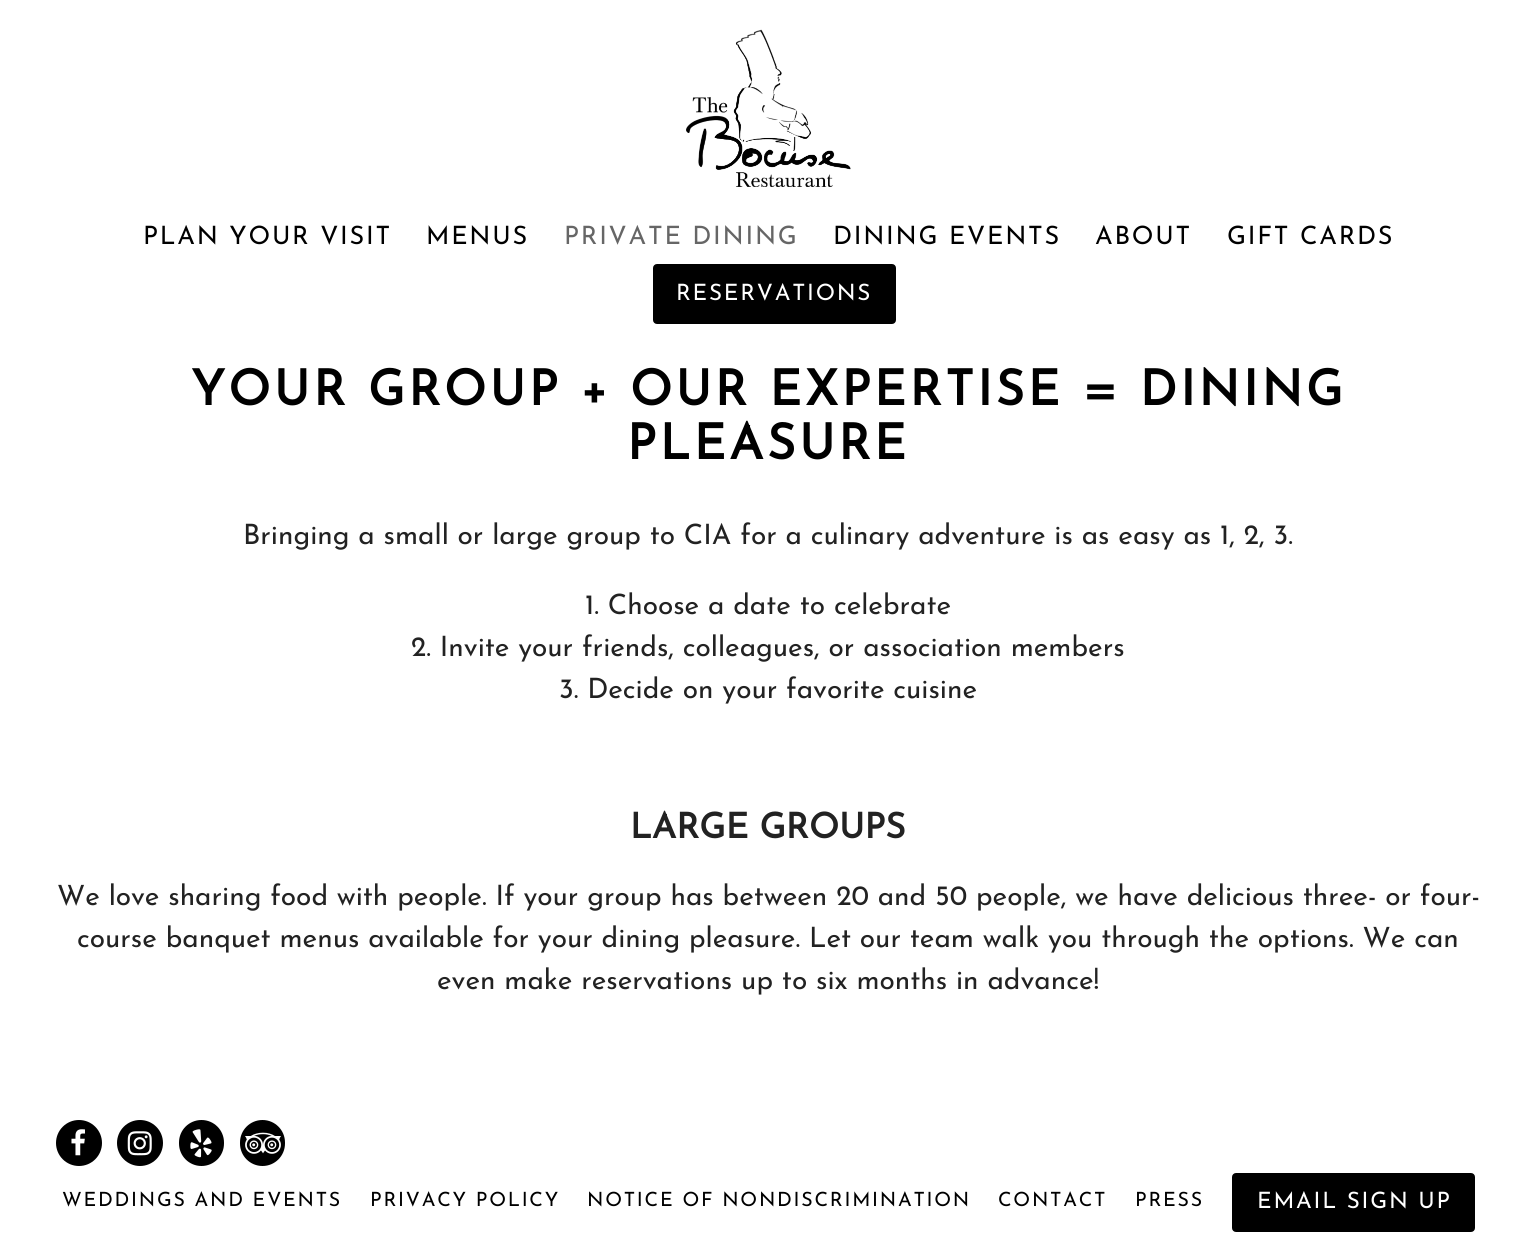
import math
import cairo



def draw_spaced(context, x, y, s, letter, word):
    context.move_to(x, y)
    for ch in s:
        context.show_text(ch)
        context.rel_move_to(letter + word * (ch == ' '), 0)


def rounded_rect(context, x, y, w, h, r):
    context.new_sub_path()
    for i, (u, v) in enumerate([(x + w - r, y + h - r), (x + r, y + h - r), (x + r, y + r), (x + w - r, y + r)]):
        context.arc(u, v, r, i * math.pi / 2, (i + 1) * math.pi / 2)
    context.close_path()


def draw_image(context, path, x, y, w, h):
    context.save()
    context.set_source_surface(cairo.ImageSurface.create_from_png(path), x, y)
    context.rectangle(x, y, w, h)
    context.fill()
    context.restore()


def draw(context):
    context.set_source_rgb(1, 1, 1)
    context.paint()
    draw_image(context, "images/1.png", 686, 29, 165, 158)
    context.set_source_rgb(0, 0, 0)
    rounded_rect(context, 654, 265, 241, 58, 3)
    context.fill_preserve()
    context.stroke()
    context.arc(79, 1143, 23, 0, 2 * math.pi)
    context.fill()
    draw_image(context, "images/2.png", 71, 1129, 14, 27)
    context.arc(140, 1143, 23, 0, 2 * math.pi)
    context.fill()
    draw_image(context, "images/3.png", 127, 1131, 25, 25)
    rounded_rect(context, 179, 1120, 45, 46, 22.5)
    context.fill()
    draw_image(context, "images/4.png", 190, 1129, 22, 29)
    rounded_rect(context, 240, 1120, 45, 46, 22.5)
    context.fill()
    draw_image(context, "images/5.png", 245, 1132, 36, 22)
    rounded_rect(context, 1233, 1174, 241, 57, 3)
    context.fill_preserve()
    context.stroke()
    context.select_font_face("Josefin Sans Thin")
    context.set_font_size(25.25)
    draw_spaced(context, 143, 244, "PLAN YOUR VISIT", 1.75, 0)
    draw_spaced(context, 426, 244, "MENUS", 1.75, 0)
    context.set_source_rgb(102 / 255, 102 / 255, 102 / 255)
    draw_spaced(context, 564, 244, "PRIVATE DINING", 1.75, 0)
    context.set_source_rgb(0, 0, 0)
    draw_spaced(context, 833, 244, "DINING EVENTS", 1.75, 0)
    draw_spaced(context, 1095, 244, "ABOUT", 1.75, 0)
    draw_spaced(context, 1227, 244, "GIFT CARDS", 1.75, 0)
    context.set_font_size(22.5)
    context.set_source_rgb(1, 1, 1)
    draw_spaced(context, 676, 300, "RESERVATIONS", 1.75, 0)
    context.select_font_face("Josefin Sans", cairo.FontSlant.NORMAL, cairo.FontWeight.BOLD)
    context.set_font_size(49)
    context.set_source_rgb(0, 0, 0)
    draw_spaced(context, 191, 405, "YOUR GROUP + OUR EXPERTISE = DINING", 3.5, 0)
    draw_spaced(context, 627, 459, "PLEASURE", 3.5, 0)
    context.select_font_face("Josefin Sans Thin")
    context.set_font_size(28)
    context.set_source_rgb(34 / 255, 34 / 255, 34 / 255)
    context.move_to(243, 544)
    context.show_text("Bringing a small or large group to CIA for a culinary adventure is as easy as 1, 2, 3.")
    context.move_to(585, 614)
    context.show_text("1. Choose a date to celebrate")
    context.move_to(411, 656)
    context.show_text("2. Invite your friends, colleagues, or association members")
    context.move_to(559, 698)
    context.show_text("3. Decide on your favorite cuisine")
    context.select_font_face("Josefin Sans", cairo.FontSlant.NORMAL, cairo.FontWeight.BOLD)
    context.set_font_size(35)
    context.move_to(630, 838)
    context.show_text("LARGE GROUPS")
    context.select_font_face("Josefin Sans Thin")
    context.set_font_size(28)
    context.move_to(57, 905)
    context.show_text("We love sharing food with people. If your group has between 20 and 50 people, we have delicious three- or four-")
    context.move_to(77, 947)
    context.show_text("course banquet menus available for your dining pleasure. Let our team walk you through the options. We can")
    context.move_to(437, 989)
    context.show_text("even make reservations up to six months in advance!")
    context.set_font_size(19.6)
    context.set_source_rgb(0, 0, 0)
    draw_spaced(context, 62, 1206, "WEDDINGS AND EVENTS", 1.75, 0)
    draw_spaced(context, 370, 1206, "PRIVACY POLICY", 1.75, 0)
    draw_spaced(context, 587, 1206, "NOTICE OF NONDISCRIMINATION", 1.75, 0)
    draw_spaced(context, 998, 1206, "CONTACT", 1.75, 0)
    draw_spaced(context, 1135, 1206, "PRESS", 1.75, 0)
    context.set_font_size(22.5)
    context.set_source_rgb(1, 1, 1)
    draw_spaced(context, 1257, 1208, "EMAIL SIGN UP", 1.75, 0)


surface = cairo.ImageSurface(cairo.Format.RGB24, 1536, 1247)
context = cairo.Context(surface)
options = cairo.FontOptions()
options.set_hint_metrics(cairo.HintMetrics.OFF)
options.set_hint_style(cairo.HintStyle.NONE)
context.set_font_options(options)
context.set_miter_limit(4)
draw(context)
surface.write_to_png("out.png")
